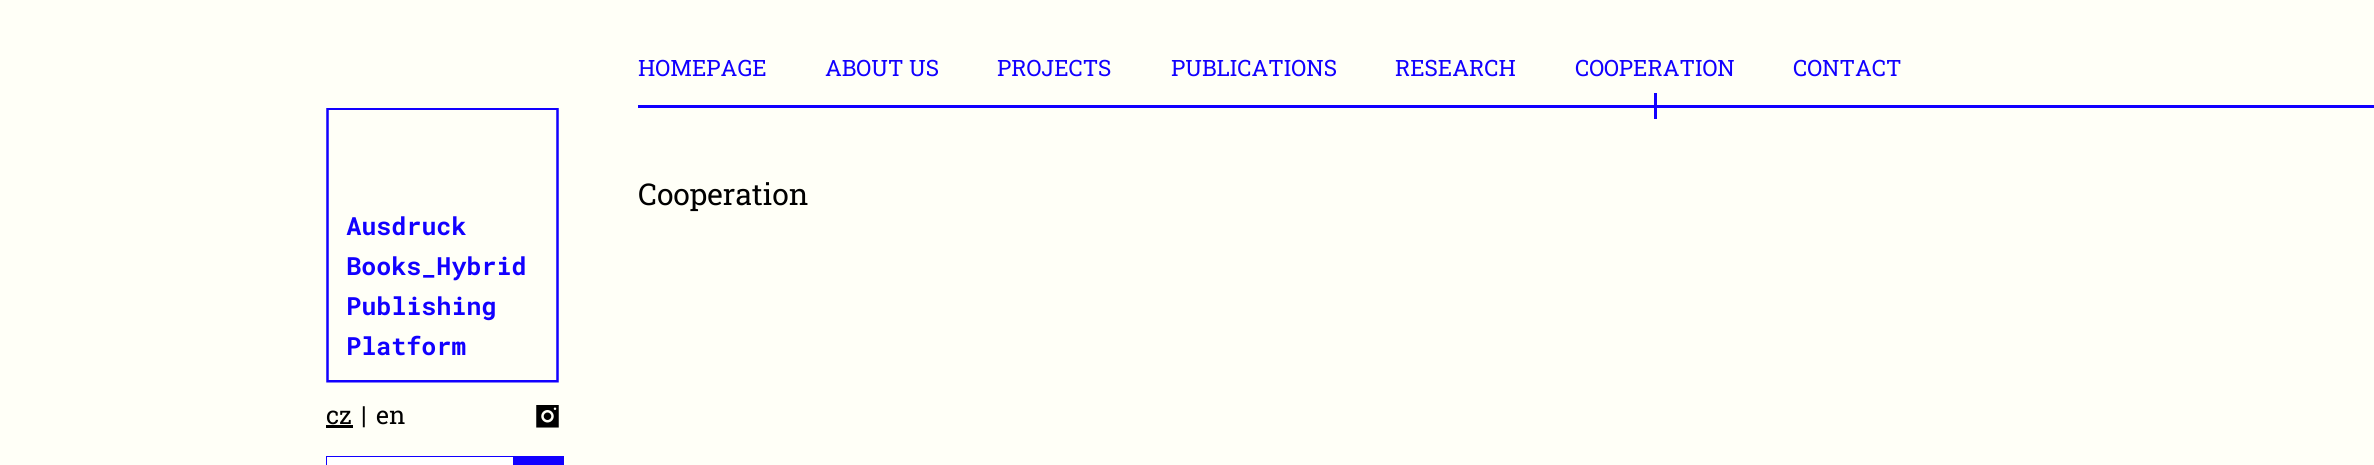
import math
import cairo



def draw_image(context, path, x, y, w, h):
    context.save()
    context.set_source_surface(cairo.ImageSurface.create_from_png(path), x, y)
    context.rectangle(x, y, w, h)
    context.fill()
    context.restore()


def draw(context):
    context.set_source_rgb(1, 1, 247 / 255)
    context.paint()
    context.set_source_rgb(18 / 255, 0, 1)
    context.rectangle(638, 105, 1736, 3)
    context.fill()
    context.rectangle(1654, 93, 3, 26)
    context.fill()
    draw_image(context, "images/1.png", 326, 108, 233, 275)
    context.set_source_rgb(0, 0, 0)
    context.rectangle(326, 425, 27, 3)
    context.fill()
    draw_image(context, "images/2.png", 536, 405, 23, 23)
    context.set_source_rgb(1, 1, 1)
    context.rectangle(327, 457, 186, 8)
    context.fill()
    context.set_source_rgb(18 / 255, 0, 1)
    context.rectangle(326, 456, 187, 1)
    context.fill()
    context.rectangle(326, 456, 1, 9)
    context.fill()
    context.rectangle(513, 456, 51, 9)
    context.fill()
    context.select_font_face("Roboto Slab")
    context.set_font_size(22.5)
    context.move_to(638, 76)
    context.show_text("HOMEPAGE")
    context.move_to(825, 76)
    context.show_text("ABOUT US")
    context.move_to(997, 76)
    context.show_text("PROJECTS")
    context.move_to(1171, 76)
    context.show_text("PUBLICATIONS")
    context.move_to(1395, 76)
    context.show_text("RESEARCH")
    context.move_to(1575, 76)
    context.show_text("COOPERATION")
    context.move_to(1793, 76)
    context.show_text("CONTACT")
    context.set_font_size(25)
    context.set_source_rgb(0, 0, 0)
    context.move_to(326, 424)
    context.show_text("cz")
    context.move_to(361, 424)
    context.show_text("|")
    context.move_to(376, 424)
    context.show_text("en")
    context.set_font_size(30)
    context.move_to(638, 205)
    context.show_text("Cooperation")


surface = cairo.ImageSurface(cairo.Format.RGB24, 2374, 465)
context = cairo.Context(surface)
options = cairo.FontOptions()
options.set_hint_metrics(cairo.HintMetrics.OFF)
options.set_hint_style(cairo.HintStyle.NONE)
context.set_font_options(options)
context.set_miter_limit(4)
draw(context)
surface.write_to_png("out.png")
